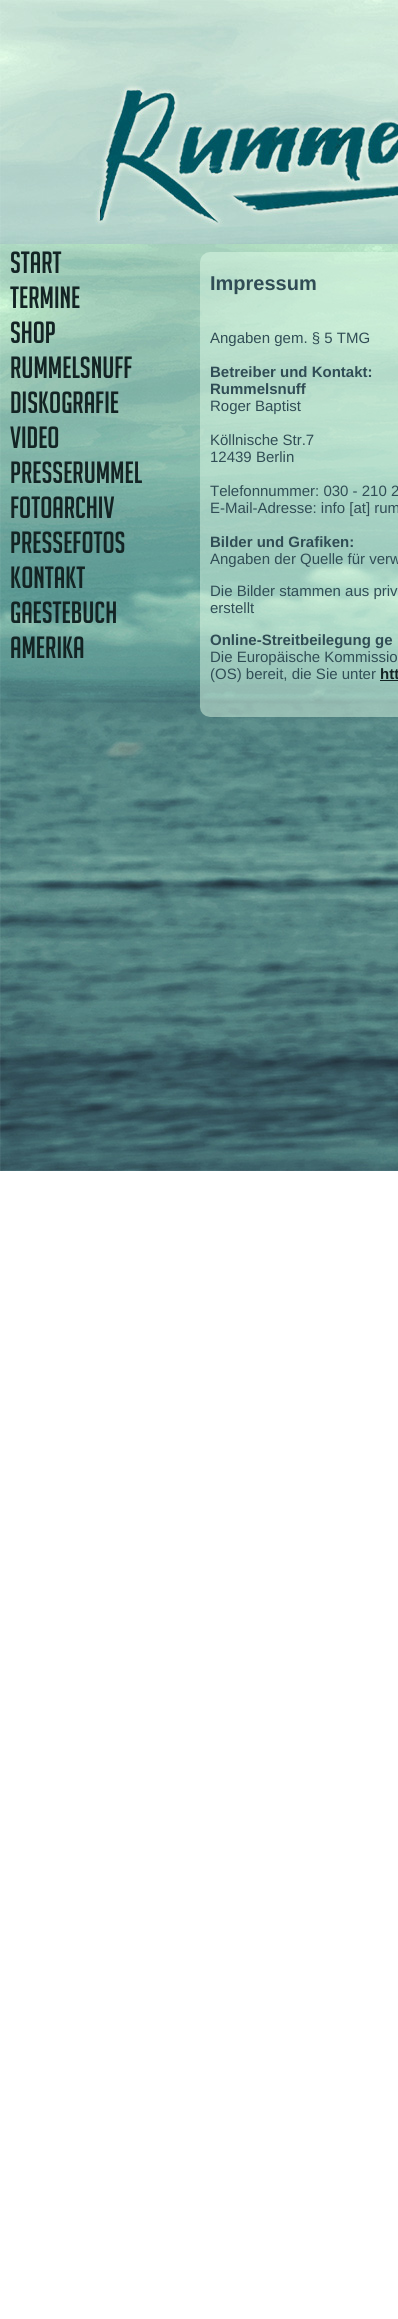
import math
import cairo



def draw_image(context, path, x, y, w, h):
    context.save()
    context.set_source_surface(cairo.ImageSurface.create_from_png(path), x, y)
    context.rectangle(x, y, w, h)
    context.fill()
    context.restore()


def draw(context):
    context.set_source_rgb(1, 1, 1)
    context.paint()
    draw_image(context, "images/1.png", 0, 244, 398, 927)
    draw_image(context, "images/2.png", 0, 0, 398, 244)
    draw_image(context, "images/3.png", 200, 252, 198, 465)
    context.set_source_rgb(19 / 255, 36 / 255, 36 / 255)
    context.rectangle(380, 680, 18, 1)
    context.fill()
    context.select_font_face("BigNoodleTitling")
    context.set_font_size(30)
    context.move_to(10, 273)
    context.show_text("START")
    context.move_to(10, 308)
    context.show_text("TERMINE")
    context.move_to(10, 343)
    context.show_text("SHOP")
    context.move_to(10, 378)
    context.show_text("RUMMELSNUFF")
    context.move_to(10, 413)
    context.show_text("DISKOGRAFIE")
    context.move_to(10, 448)
    context.show_text("VIDEO")
    context.move_to(10, 483)
    context.show_text("PRESSERUMMEL")
    context.move_to(10, 518)
    context.show_text("FOTOARCHIV")
    context.move_to(10, 553)
    context.show_text("PRESSEFOTOS")
    context.move_to(10, 588)
    context.show_text("KONTAKT")
    context.move_to(10, 623)
    context.show_text("GAESTEBUCH")
    context.move_to(10, 658)
    context.show_text("AMERIKA")
    context.select_font_face("Liberation Sans", cairo.FontSlant.NORMAL, cairo.FontWeight.BOLD)
    context.set_font_size(20)
    context.set_source_rgb(48 / 255, 77 / 255, 85 / 255)
    context.move_to(210, 290)
    context.show_text("Impressum")
    context.select_font_face("Liberation Sans")
    context.set_font_size(15)
    context.move_to(210, 343)
    context.show_text("Angaben gem. § 5 TMG")
    context.select_font_face("Liberation Sans", cairo.FontSlant.NORMAL, cairo.FontWeight.BOLD)
    context.move_to(210, 377)
    context.show_text("Betreiber und Kontakt:")
    context.move_to(210, 394)
    context.show_text("Rummelsnuff")
    context.select_font_face("Liberation Sans")
    context.move_to(210, 411)
    context.show_text("Roger Baptist")
    context.move_to(210, 445)
    context.show_text("Köllnische Str.7")
    context.move_to(210, 462)
    context.show_text("12439 Berlin")
    context.move_to(210, 496)
    context.show_text("Telefonnummer: 030 - 210 2")
    context.move_to(210, 513)
    context.show_text("E-Mail-Adresse: info [at] rum")
    context.select_font_face("Liberation Sans", cairo.FontSlant.NORMAL, cairo.FontWeight.BOLD)
    context.move_to(210, 547)
    context.show_text("Bilder und Grafiken:")
    context.select_font_face("Liberation Sans")
    context.move_to(210, 564)
    context.show_text("Angaben der Quelle für verw")
    context.move_to(210, 596)
    context.show_text("Die Bilder stammen aus priv")
    context.move_to(210, 613)
    context.show_text("erstellt")
    context.select_font_face("Liberation Sans", cairo.FontSlant.NORMAL, cairo.FontWeight.BOLD)
    context.move_to(210, 645)
    context.show_text("Online-Streitbeilegung ge")
    context.select_font_face("Liberation Sans")
    context.move_to(210, 662)
    context.show_text("Die Europäische Kommissio")
    context.move_to(210, 679)
    context.show_text("(OS) bereit, die Sie unter")
    context.select_font_face("Liberation Sans", cairo.FontSlant.NORMAL, cairo.FontWeight.BOLD)
    context.set_source_rgb(19 / 255, 36 / 255, 36 / 255)
    context.move_to(380, 679)
    context.show_text("htt")


surface = cairo.ImageSurface(cairo.Format.RGB24, 398, 2319)
context = cairo.Context(surface)
options = cairo.FontOptions()
options.set_hint_metrics(cairo.HintMetrics.OFF)
options.set_hint_style(cairo.HintStyle.NONE)
context.set_font_options(options)
context.set_miter_limit(4)
draw(context)
surface.write_to_png("out.png")
